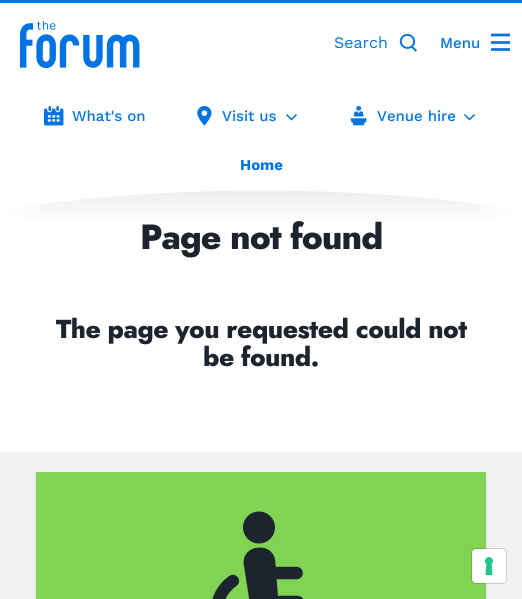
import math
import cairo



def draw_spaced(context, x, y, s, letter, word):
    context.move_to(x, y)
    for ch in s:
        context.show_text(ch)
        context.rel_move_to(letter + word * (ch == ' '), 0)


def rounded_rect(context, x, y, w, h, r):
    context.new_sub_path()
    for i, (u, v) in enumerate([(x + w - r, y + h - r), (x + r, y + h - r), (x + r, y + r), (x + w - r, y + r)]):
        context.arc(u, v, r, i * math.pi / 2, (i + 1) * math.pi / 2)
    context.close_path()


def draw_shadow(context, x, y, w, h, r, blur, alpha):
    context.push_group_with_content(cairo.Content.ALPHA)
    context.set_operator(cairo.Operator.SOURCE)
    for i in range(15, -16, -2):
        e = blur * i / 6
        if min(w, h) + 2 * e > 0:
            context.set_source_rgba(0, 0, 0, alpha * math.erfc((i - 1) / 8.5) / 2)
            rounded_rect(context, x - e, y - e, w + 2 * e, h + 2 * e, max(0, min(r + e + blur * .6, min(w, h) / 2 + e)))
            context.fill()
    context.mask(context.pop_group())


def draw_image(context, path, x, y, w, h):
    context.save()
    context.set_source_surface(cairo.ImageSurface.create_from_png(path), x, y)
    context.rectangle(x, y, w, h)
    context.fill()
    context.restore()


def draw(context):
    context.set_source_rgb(1, 1, 1)
    context.paint()
    context.set_source_rgb(2 / 255, 115 / 255, 227 / 255)
    context.rectangle(0, 0, 522, 3)
    context.fill()
    draw_image(context, "images/1.png", 20, 21, 120, 47)
    draw_image(context, "images/2.png", 399, 33, 18, 19)
    context.save()
    context.rectangle(490, 33, 20, 20)
    context.clip()
    context.new_path()
    context.move_to(491, 35)
    context.line_to(510.5, 35)
    context.move_to(491, 42.5)
    context.line_to(510.5, 42.5)
    context.move_to(491, 49.5)
    context.line_to(510.5, 49.5)
    context.set_line_width(2.7)
    context.stroke()
    context.restore()
    draw_image(context, "images/3.png", 44, 106, 20, 20)
    draw_image(context, "images/4.png", 197, 106, 15, 20)
    context.new_path()
    context.move_to(287, 115)
    context.line_to(291.5, 119.5)
    context.move_to(296, 115)
    context.line_to(291.5, 119.5)
    context.set_line_width(1.5)
    context.set_line_cap(cairo.LineCap.SQUARE)
    context.stroke()
    draw_image(context, "images/5.png", 350, 106, 17, 20)
    context.new_path()
    context.move_to(465, 115)
    context.line_to(469.5, 119.5)
    context.move_to(474, 115)
    context.line_to(469.5, 119.5)
    context.stroke()
    gradient = cairo.LinearGradient(261, 190, 261, 225)
    gradient.add_color_stop_rgba(0, 239 / 255, 236 / 255, 236 / 255, 1)
    gradient.add_color_stop_rgba(1, 1, 1, 1, 1)
    context.set_source(gradient)
    context.rectangle(0, 190, 522, 30)
    context.fill()
    gradient = cairo.LinearGradient(0, 208, 52, 208)
    gradient.add_color_stop_rgba(0, 1, 1, 1, 1)
    gradient.add_color_stop_rgba(1, 1, 1, 1, 0)
    context.set_source(gradient)
    context.rectangle(0, 203, 41, 17)
    context.fill()
    gradient = cairo.LinearGradient(522, 207, 470, 207)
    gradient.add_color_stop_rgba(0, 1, 1, 1, 1)
    gradient.add_color_stop_rgba(1, 1, 1, 1, 0)
    context.set_source(gradient)
    context.rectangle(481, 203, 41, 17)
    context.fill()
    context.set_source_rgb(1, 1, 1)
    context.set_fill_rule(cairo.FillRule.EVEN_ODD)
    context.new_path()
    context.move_to(522, 210)
    context.curve_to(354, 184, 168, 184, 0, 210)
    context.line_to(0, 190)
    context.line_to(522, 190)
    context.close_path()
    context.fill()
    context.set_source_rgb(242 / 255, 241 / 255, 241 / 255)
    context.rectangle(0, 452, 522, 147)
    context.fill()
    context.set_source_rgb(0, 0, 0)
    draw_shadow(context, 36, 474, 450, 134, 3, 2, 0.1)
    context.set_source_rgb(129 / 255, 212 / 255, 83 / 255)
    context.rectangle(36, 472, 450, 127)
    context.fill()
    draw_image(context, "images/6.png", 212, 511, 92, 88)
    rounded_rect(context, 471.5, 548.5, 35, 35, 4.5)
    context.set_source_rgba(0, 0, 0, 0.15)
    context.set_line_width(1)
    context.set_line_cap(cairo.LineCap.BUTT)
    context.stroke()
    context.set_source_rgb(1, 1, 1)
    rounded_rect(context, 472, 549, 34, 34, 4)
    context.fill()
    draw_image(context, "images/7.png", 485, 557, 8, 18)
    context.select_font_face("Work Sans")
    context.set_font_size(16)
    context.set_source_rgb(2 / 255, 115 / 255, 227 / 255)
    context.move_to(334, 48)
    context.show_text("Search")
    context.select_font_face("Work Sans Medium")
    context.set_font_size(15)
    context.move_to(440, 48)
    context.show_text("Menu")
    context.move_to(72, 121)
    context.show_text("What's on")
    context.move_to(222, 121)
    context.show_text("Visit us")
    context.move_to(377, 121)
    context.show_text("Venue hire")
    context.select_font_face("Work Sans", cairo.FontSlant.NORMAL, cairo.FontWeight.BOLD)
    context.move_to(240, 170)
    context.show_text("Home")
    context.select_font_face("Jost ExtraBold")
    context.set_font_size(35)
    context.set_source_rgb(30 / 255, 36 / 255, 46 / 255)
    draw_spaced(context, 140, 249, "Page not found", -1, 0)
    context.set_font_size(26)
    draw_spaced(context, 56, 338, "The page you requested could not", -0.5, 0)
    draw_spaced(context, 203, 366, "be found.", -0.5, 0)


surface = cairo.ImageSurface(cairo.Format.RGB24, 522, 599)
context = cairo.Context(surface)
options = cairo.FontOptions()
options.set_hint_metrics(cairo.HintMetrics.OFF)
options.set_hint_style(cairo.HintStyle.NONE)
context.set_font_options(options)
context.set_miter_limit(4)
draw(context)
surface.write_to_png("out.png")
